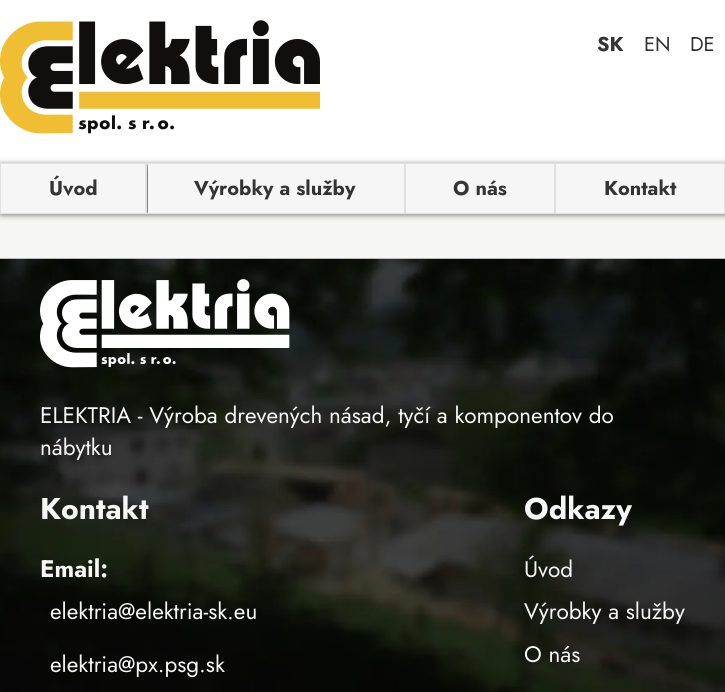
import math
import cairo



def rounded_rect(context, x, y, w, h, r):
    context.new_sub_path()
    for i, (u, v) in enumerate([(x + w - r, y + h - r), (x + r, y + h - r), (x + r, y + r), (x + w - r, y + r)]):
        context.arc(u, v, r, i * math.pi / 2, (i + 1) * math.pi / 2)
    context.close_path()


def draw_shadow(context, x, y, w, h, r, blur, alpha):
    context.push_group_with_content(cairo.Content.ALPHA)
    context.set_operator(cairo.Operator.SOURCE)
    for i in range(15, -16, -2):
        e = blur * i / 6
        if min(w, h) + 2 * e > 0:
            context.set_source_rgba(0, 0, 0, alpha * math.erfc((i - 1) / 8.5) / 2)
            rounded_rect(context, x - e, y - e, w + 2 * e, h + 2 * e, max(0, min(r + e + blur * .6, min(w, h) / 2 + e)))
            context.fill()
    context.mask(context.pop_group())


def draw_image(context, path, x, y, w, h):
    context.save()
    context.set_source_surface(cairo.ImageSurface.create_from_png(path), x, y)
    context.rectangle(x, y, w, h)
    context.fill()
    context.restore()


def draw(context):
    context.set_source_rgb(246 / 255, 246 / 255, 245 / 255)
    context.paint()
    context.set_source_rgb(1, 1, 1)
    context.rectangle(0, 0, 725, 213)
    context.fill()
    draw_image(context, "images/1.png", 0, 20, 320, 114)
    context.set_source_rgb(0, 0, 0)
    draw_shadow(context, 1, 164, 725, 51, 0, 3, 0.5)
    context.rectangle(0.5, 163.5, 145, 50)
    context.set_source_rgb(225 / 255, 225 / 255, 225 / 255)
    context.set_line_width(1)
    context.stroke()
    context.set_source_rgb(246 / 255, 246 / 255, 246 / 255)
    context.rectangle(1, 164, 144, 49)
    context.fill()
    context.rectangle(146.5, 163.5, 258, 50)
    context.set_source_rgb(225 / 255, 225 / 255, 225 / 255)
    context.stroke()
    context.set_source_rgb(246 / 255, 246 / 255, 246 / 255)
    context.rectangle(148, 164, 256, 49)
    context.fill()
    context.rectangle(405.5, 163.5, 149, 50)
    context.set_source_rgb(225 / 255, 225 / 255, 225 / 255)
    context.stroke()
    context.set_source_rgb(246 / 255, 246 / 255, 246 / 255)
    context.rectangle(406, 164, 148, 49)
    context.fill()
    context.rectangle(555.5, 163.5, 169, 50)
    context.set_source_rgb(225 / 255, 225 / 255, 225 / 255)
    context.stroke()
    context.set_source_rgb(246 / 255, 246 / 255, 246 / 255)
    context.rectangle(556, 164, 168, 49)
    context.fill()
    draw_image(context, "images/2.png", 0, 258, 725, 434)
    draw_image(context, "images/3.png", 40, 279, 250, 89)
    context.select_font_face("Jost", cairo.FontSlant.NORMAL, cairo.FontWeight.BOLD)
    context.set_font_size(20)
    context.set_source_rgb(52 / 255, 52 / 255, 52 / 255)
    context.move_to(597, 51)
    context.show_text("SK")
    context.select_font_face("Jost")
    context.move_to(644, 51)
    context.show_text("EN")
    context.move_to(690, 51)
    context.show_text("DE")
    context.select_font_face("Jost", cairo.FontSlant.NORMAL, cairo.FontWeight.BOLD)
    context.move_to(49, 195)
    context.show_text("Úvod")
    context.move_to(194, 195)
    context.show_text("Výrobky a služby")
    context.move_to(453, 195)
    context.show_text("O nás")
    context.move_to(604, 195)
    context.show_text("Kontakt")
    context.select_font_face("Jost")
    context.set_font_size(22.5)
    context.set_source_rgb(246 / 255, 246 / 255, 246 / 255)
    context.move_to(40, 423)
    context.show_text("ELEKTRIA - Výroba drevených násad, tyčí a komponentov do")
    context.move_to(40, 455)
    context.show_text("nábytku")
    context.select_font_face("Jost", cairo.FontSlant.NORMAL, cairo.FontWeight.BOLD)
    context.set_font_size(30)
    context.move_to(40, 519)
    context.show_text("Kontakt")
    context.set_font_size(24)
    context.move_to(40, 577)
    context.show_text("Email:")
    context.select_font_face("Jost")
    context.set_font_size(22.5)
    context.move_to(50, 619)
    context.show_text("elektria@elektria-sk.eu")
    context.move_to(50, 672)
    context.show_text("elektria@px.psg.sk")
    context.select_font_face("Jost", cairo.FontSlant.NORMAL, cairo.FontWeight.BOLD)
    context.set_font_size(30)
    context.move_to(524, 519)
    context.show_text("Odkazy")
    context.select_font_face("Jost")
    context.set_font_size(22.5)
    context.move_to(524, 577)
    context.show_text("Úvod")
    context.move_to(524, 619)
    context.show_text("Výrobky a služby")
    context.move_to(524, 662)
    context.show_text("O nás")


surface = cairo.ImageSurface(cairo.Format.RGB24, 725, 692)
context = cairo.Context(surface)
options = cairo.FontOptions()
options.set_hint_metrics(cairo.HintMetrics.OFF)
options.set_hint_style(cairo.HintStyle.NONE)
context.set_font_options(options)
context.set_miter_limit(4)
draw(context)
surface.write_to_png("out.png")
